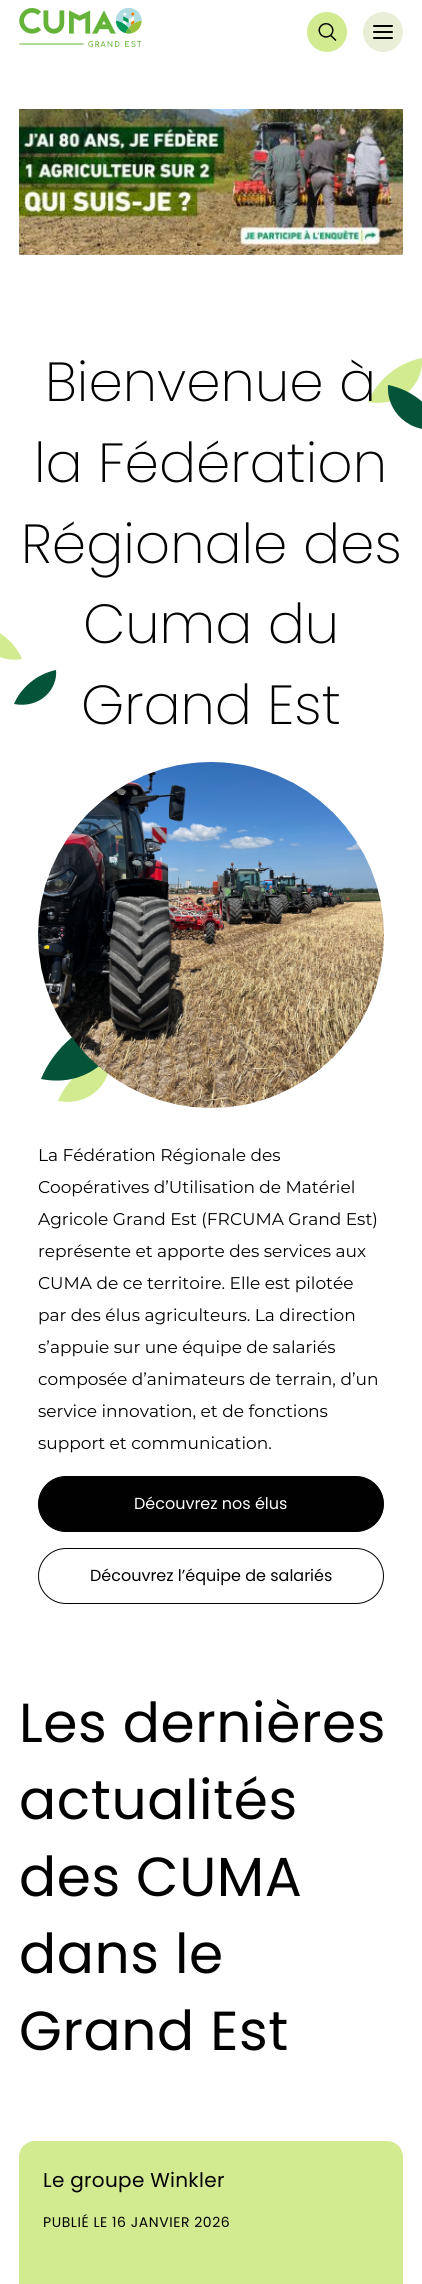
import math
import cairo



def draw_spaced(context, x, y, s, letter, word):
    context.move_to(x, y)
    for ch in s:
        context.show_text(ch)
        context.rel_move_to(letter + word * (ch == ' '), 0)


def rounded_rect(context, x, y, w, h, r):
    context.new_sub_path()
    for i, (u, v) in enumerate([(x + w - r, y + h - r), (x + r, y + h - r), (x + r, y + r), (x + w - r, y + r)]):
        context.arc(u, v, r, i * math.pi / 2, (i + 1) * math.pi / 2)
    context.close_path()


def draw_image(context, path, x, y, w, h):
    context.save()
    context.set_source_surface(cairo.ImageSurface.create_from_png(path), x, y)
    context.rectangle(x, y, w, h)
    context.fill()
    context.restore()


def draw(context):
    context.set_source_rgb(1, 1, 1)
    context.paint()
    draw_image(context, "images/1.png", 19, 8, 123, 39)
    context.set_source_rgb(210 / 255, 235 / 255, 144 / 255)
    context.arc(327, 32, 20, 0, 2 * math.pi)
    context.fill()
    draw_image(context, "images/2.png", 318, 23, 19, 18)
    context.set_source_rgb(232 / 255, 239 / 255, 214 / 255)
    context.arc(383, 32, 20, 0, 2 * math.pi)
    context.fill()
    context.set_source_rgb(1 / 255, 1 / 255, 1 / 255)
    rounded_rect(context, 373, 31, 20, 2, 1)
    context.fill()
    rounded_rect(context, 373, 25, 20, 2, 1)
    context.fill()
    rounded_rect(context, 373, 37, 20, 2, 1)
    context.fill()
    draw_image(context, "images/3.png", 19, 109, 384, 146)
    context.set_source_rgb(210 / 255, 235 / 255, 144 / 255)
    context.new_path()
    context.move_to(368, 402)
    context.curve_to(376, 382, 396, 363, 422, 358)
    context.curve_to(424, 383, 402, 408, 368, 402)
    context.close_path()
    context.fill()
    context.set_source_rgb(3 / 255, 84 / 255, 56 / 255)
    context.new_path()
    context.move_to(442, 429)
    context.curve_to(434, 409, 414, 390, 388, 385)
    context.curve_to(386, 410, 408, 435, 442, 429)
    context.close_path()
    context.fill()
    context.set_source_rgb(210 / 255, 235 / 255, 144 / 255)
    context.new_path()
    context.move_to(22, 659)
    context.curve_to(16, 644, 0, 629, -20, 625)
    context.curve_to(-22, 644, -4, 664, 22, 659)
    context.close_path()
    context.fill()
    context.set_source_rgb(3 / 255, 84 / 255, 56 / 255)
    context.new_path()
    context.move_to(14, 704)
    context.curve_to(20, 689, 36, 674, 56, 670)
    context.curve_to(58, 689, 40, 709, 14, 704)
    context.close_path()
    context.fill()
    context.set_source_rgb(210 / 255, 235 / 255, 144 / 255)
    context.new_path()
    context.move_to(58, 1101)
    context.curve_to(66, 1081, 85, 1063, 110, 1058)
    context.curve_to(112, 1082, 90, 1107, 58, 1101)
    context.close_path()
    context.fill()
    context.set_source_rgb(3 / 255, 84 / 255, 56 / 255)
    context.new_path()
    context.move_to(41, 1079)
    context.curve_to(53, 1049, 83, 1021, 122, 1013)
    context.curve_to(126, 1050, 91, 1089, 41, 1079)
    context.close_path()
    context.fill()
    draw_image(context, "images/4.png", 38, 762, 346, 346)
    context.set_source_rgb(1 / 255, 1 / 255, 1 / 255)
    rounded_rect(context, 38.5, 1476.5, 345, 55, 27.5)
    context.fill_preserve()
    context.set_line_width(1)
    context.stroke()
    rounded_rect(context, 38.5, 1548.5, 345, 55, 27.5)
    context.stroke()
    context.set_source_rgb(210 / 255, 235 / 255, 144 / 255)
    rounded_rect(context, 19, 2141, 384, 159, 16)
    context.fill()
    context.select_font_face("Poppins ExtraLight")
    context.set_font_size(55)
    context.set_source_rgb(1 / 255, 1 / 255, 1 / 255)
    context.move_to(45, 401)
    context.show_text("Bienvenue à")
    context.move_to(34, 482)
    context.show_text("la Fédération")
    context.move_to(21, 563)
    context.show_text("Régionale des")
    context.move_to(83, 643)
    context.show_text("Cuma du")
    context.move_to(81, 724)
    context.show_text("Grand Est")
    context.select_font_face("Montserrat")
    context.set_font_size(17)
    context.move_to(38, 1161)
    context.show_text("La Fédération Régionale des")
    context.move_to(38, 1193)
    context.show_text("Coopératives d’Utilisation de Matériel")
    context.move_to(38, 1225)
    context.show_text("Agricole Grand Est (FRCUMA Grand Est)")
    context.move_to(38, 1257)
    context.show_text("représente et apporte des services aux")
    context.move_to(38, 1289)
    context.show_text("CUMA de ce territoire. Elle est pilotée")
    context.move_to(38, 1321)
    context.show_text("par des élus agriculteurs. La direction")
    context.move_to(38, 1353)
    context.show_text("s’appuie sur une équipe de salariés")
    context.move_to(38, 1385)
    context.show_text("composée d’animateurs de terrain, d’un")
    context.move_to(38, 1417)
    context.show_text("service innovation, et de fonctions")
    context.move_to(38, 1449)
    context.show_text("support et communication.")
    context.select_font_face("Poppins")
    context.set_font_size(16)
    context.set_source_rgb(1, 1, 1)
    context.move_to(134, 1509)
    context.show_text("Découvrez nos élus")
    context.set_source_rgb(1 / 255, 1 / 255, 1 / 255)
    context.move_to(90, 1581)
    context.show_text("Découvrez l’équipe de salariés")
    context.set_font_size(55)
    draw_spaced(context, 19, 1742, "Les dernières", 0.6, 0)
    draw_spaced(context, 19, 1819, "actualités", 0.6, 0)
    draw_spaced(context, 19, 1896, "des CUMA", 0.6, 0)
    draw_spaced(context, 19, 1973, "dans le", 0.6, 0)
    draw_spaced(context, 19, 2050, "Grand Est", 0.6, 0)
    context.set_font_size(20)
    draw_spaced(context, 43, 2187, "Le groupe Winkler", 0.3, 0)
    context.set_font_size(14)
    draw_spaced(context, 43, 2227, "PUBLIÉ LE 16 JANVIER 2026", 0.55, 0)


surface = cairo.ImageSurface(cairo.Format.RGB24, 422, 2284)
context = cairo.Context(surface)
options = cairo.FontOptions()
options.set_hint_metrics(cairo.HintMetrics.OFF)
options.set_hint_style(cairo.HintStyle.NONE)
context.set_font_options(options)
context.set_miter_limit(4)
draw(context)
surface.write_to_png("out.png")
